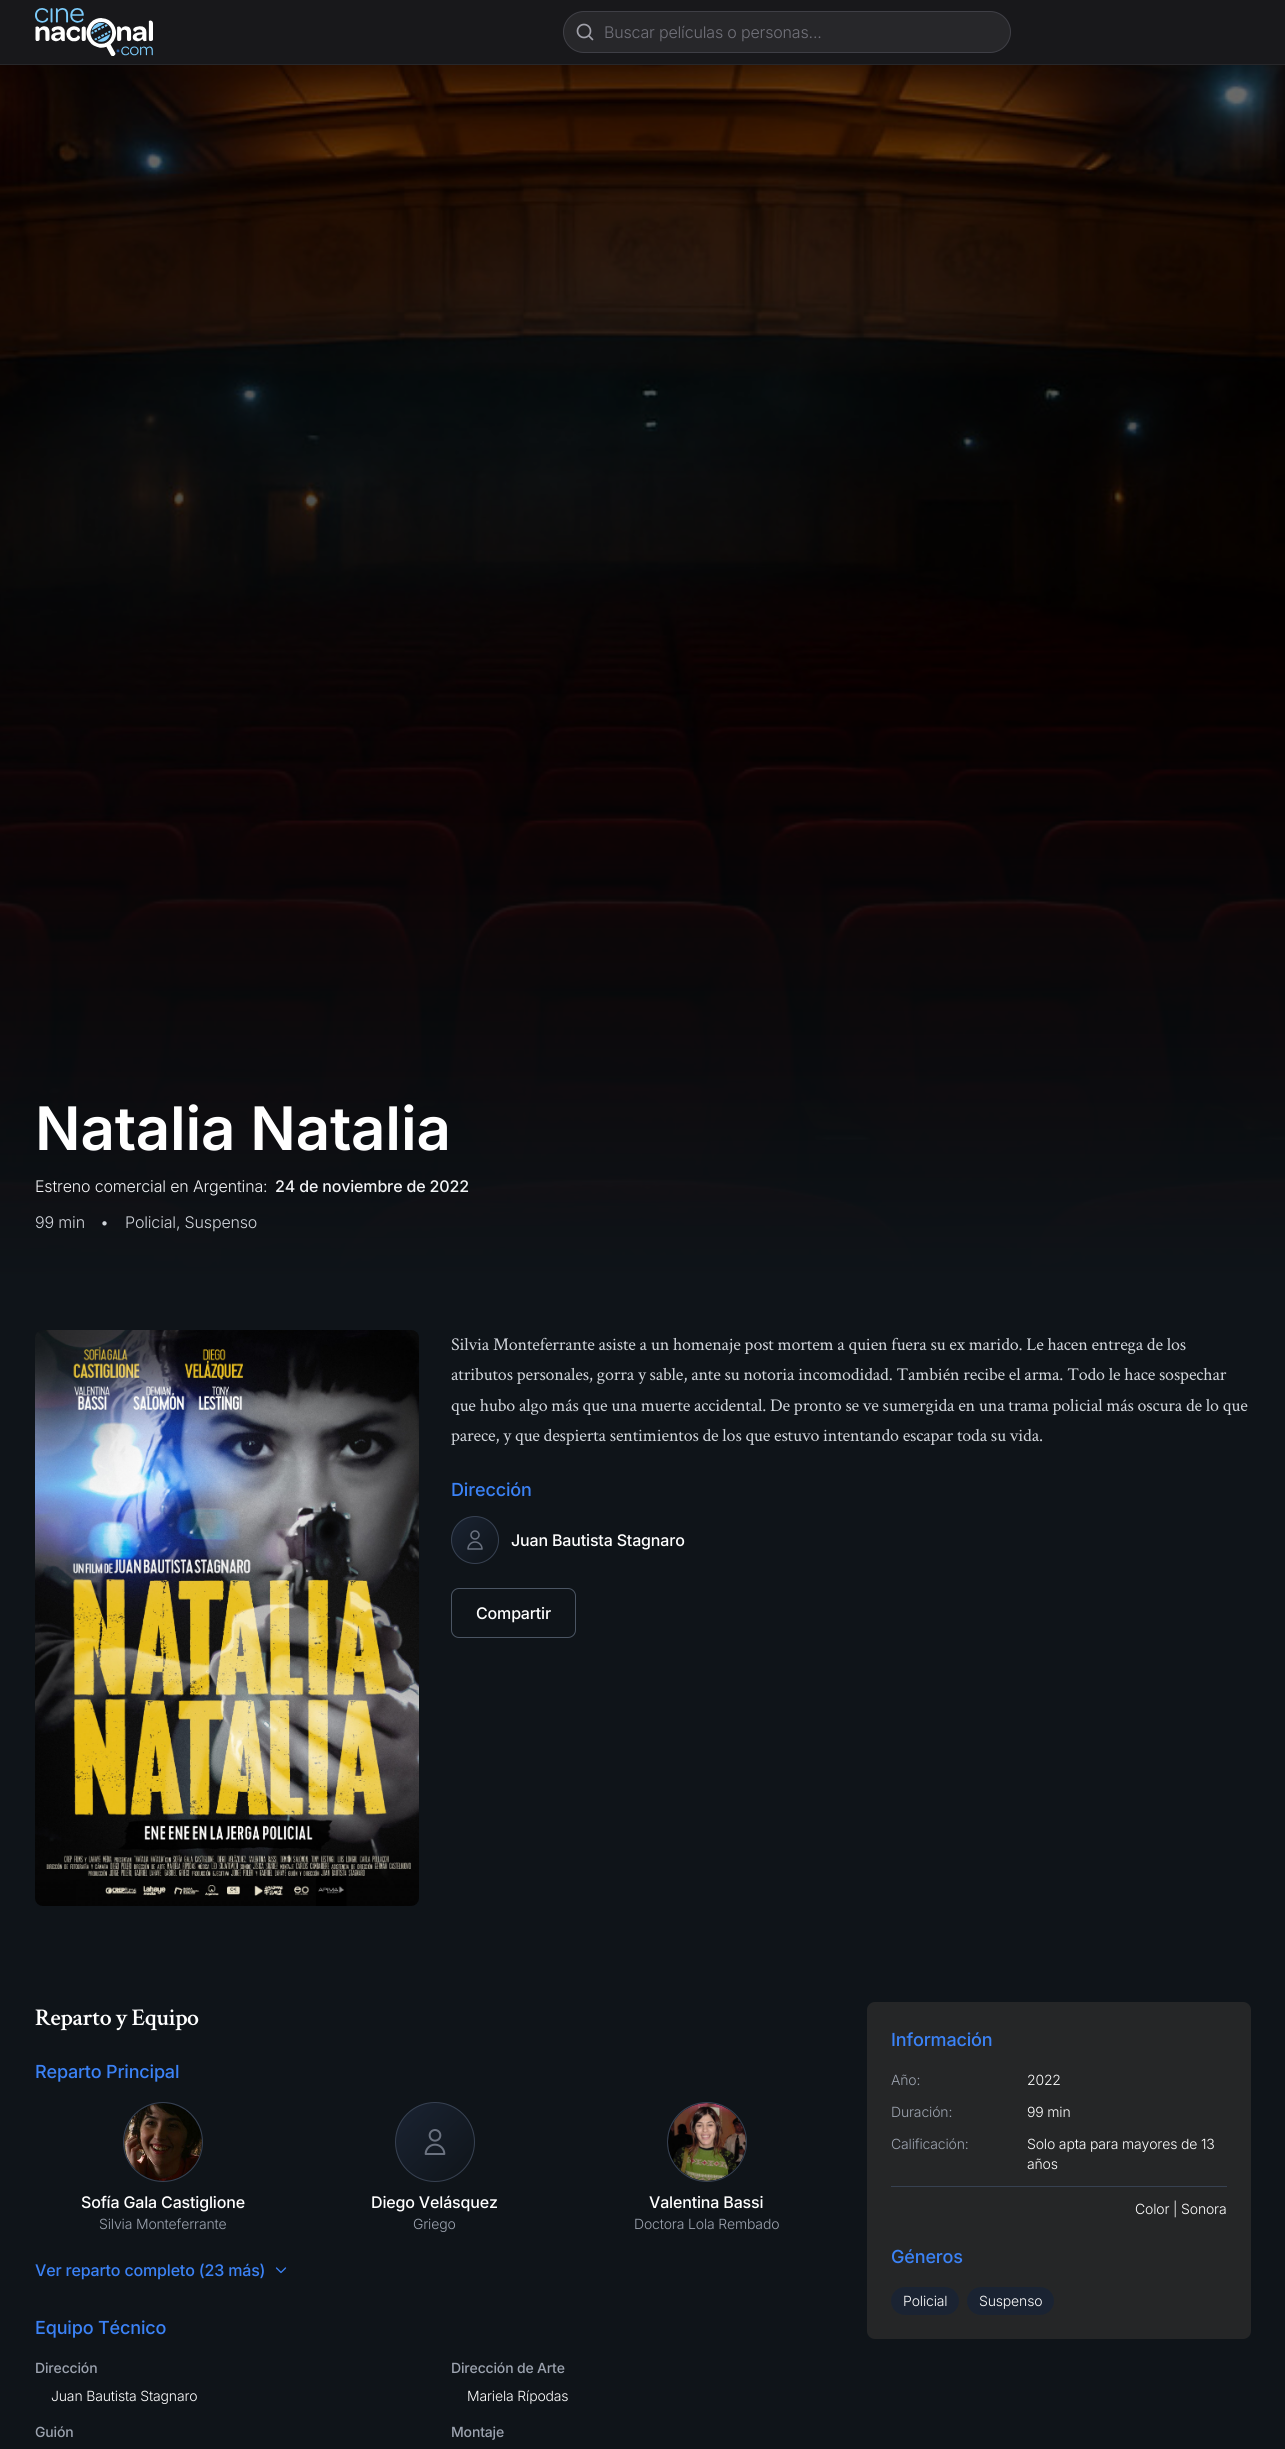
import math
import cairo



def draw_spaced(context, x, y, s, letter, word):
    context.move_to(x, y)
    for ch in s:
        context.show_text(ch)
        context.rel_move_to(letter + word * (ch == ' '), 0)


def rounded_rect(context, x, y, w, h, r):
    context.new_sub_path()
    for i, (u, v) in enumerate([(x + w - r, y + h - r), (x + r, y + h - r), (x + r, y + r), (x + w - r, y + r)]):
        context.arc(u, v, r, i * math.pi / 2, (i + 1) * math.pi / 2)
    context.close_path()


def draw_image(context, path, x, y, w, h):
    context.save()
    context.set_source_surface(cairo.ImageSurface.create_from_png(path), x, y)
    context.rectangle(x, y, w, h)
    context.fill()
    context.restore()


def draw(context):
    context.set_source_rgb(15 / 255, 20 / 255, 25 / 255)
    context.paint()
    context.set_source_rgb(24 / 255, 24 / 255, 27 / 255)
    context.rectangle(0, 0, 1285, 64)
    context.fill()
    context.set_source_rgb(39 / 255, 39 / 255, 42 / 255)
    context.rectangle(0, 64, 1285, 1)
    context.fill()
    draw_image(context, "images/1.png", 35, 8, 118, 48)
    rounded_rect(context, 563.5, 11.5, 447, 41, 20.5)
    context.fill_preserve()
    context.set_source_rgb(63 / 255, 63 / 255, 70 / 255)
    context.set_line_width(1)
    context.stroke()
    context.new_path()
    context.move_to(592.5, 39.5)
    context.line_to(589, 36)
    context.set_source_rgb(161 / 255, 161 / 255, 170 / 255)
    context.set_line_width(1.7)
    context.set_line_cap(cairo.LineCap.ROUND)
    context.set_line_join(cairo.LineJoin.ROUND)
    context.stroke()
    context.arc(584, 31, 6.5, 0, 2 * math.pi)
    context.set_line_cap(cairo.LineCap.BUTT)
    context.set_line_join(cairo.LineJoin.MITER)
    context.stroke()
    draw_image(context, "images/2.png", 0, 65, 1285, 1217)
    draw_image(context, "images/3.png", 35, 1330, 384, 576)
    context.save()
    rounded_rect(context, 451, 1516, 48, 48, 24)
    context.clip()
    gradient = cairo.LinearGradient(452, 1517, 498, 1563)
    gradient.add_color_stop_rgba(0, 26 / 255, 35 / 255, 50 / 255, 1)
    gradient.add_color_stop_rgba(1, 15 / 255, 20 / 255, 25 / 255, 1)
    context.set_source(gradient)
    context.rectangle(452, 1517, 46, 46)
    context.fill()
    context.restore()
    context.arc(475, 1540, 23.5, 0, 2 * math.pi)
    context.set_source_rgb(55 / 255, 65 / 255, 81 / 255)
    context.set_line_width(1)
    context.stroke()
    draw_image(context, "images/4.png", 467, 1530, 16, 20)
    rounded_rect(context, 451.5, 1588.5, 124, 49, 7.5)
    context.set_source_rgb(75 / 255, 85 / 255, 99 / 255)
    context.stroke()
    context.save()
    rounded_rect(context, 123, 2102, 80, 80, 40)
    context.clip()
    gradient = cairo.LinearGradient(124, 2103, 202, 2181)
    gradient.add_color_stop_rgba(0, 26 / 255, 35 / 255, 50 / 255, 1)
    gradient.add_color_stop_rgba(1, 15 / 255, 20 / 255, 25 / 255, 1)
    context.set_source(gradient)
    context.rectangle(124, 2103, 78, 78)
    context.fill()
    context.restore()
    context.arc(163, 2142, 39.5, 0, 2 * math.pi)
    context.set_source_rgb(55 / 255, 65 / 255, 81 / 255)
    context.stroke()
    draw_image(context, "images/5.png", 124, 2103, 78, 78)
    context.save()
    rounded_rect(context, 395, 2102, 80, 80, 40)
    context.clip()
    gradient = cairo.LinearGradient(396, 2103, 474, 2181)
    gradient.add_color_stop_rgba(0, 26 / 255, 35 / 255, 50 / 255, 1)
    gradient.add_color_stop_rgba(1, 15 / 255, 20 / 255, 25 / 255, 1)
    context.set_source(gradient)
    context.rectangle(396, 2103, 78, 78)
    context.fill()
    context.restore()
    context.arc(435, 2142, 39.5, 0, 2 * math.pi)
    context.stroke()
    draw_image(context, "images/6.png", 424, 2129, 22, 26)
    context.save()
    rounded_rect(context, 667, 2102, 80, 80, 40)
    context.clip()
    gradient = cairo.LinearGradient(668, 2103, 746, 2181)
    gradient.add_color_stop_rgba(0, 26 / 255, 35 / 255, 50 / 255, 1)
    gradient.add_color_stop_rgba(1, 15 / 255, 20 / 255, 25 / 255, 1)
    context.set_source(gradient)
    context.rectangle(668, 2103, 78, 78)
    context.fill()
    context.restore()
    context.arc(707, 2142, 39.5, 0, 2 * math.pi)
    context.stroke()
    draw_image(context, "images/7.png", 668, 2103, 78, 78)
    context.new_path()
    context.move_to(285.5, 2268)
    context.line_to(281, 2272.5)
    context.line_to(276.5, 2268)
    context.set_source_rgb(59 / 255, 130 / 255, 246 / 255)
    context.set_line_width(1.3)
    context.set_line_cap(cairo.LineCap.ROUND)
    context.set_line_join(cairo.LineJoin.ROUND)
    context.stroke()
    context.set_source_rgb(37 / 255, 38 / 255, 39 / 255)
    rounded_rect(context, 867, 2002, 384, 337, 8)
    context.fill()
    context.set_source_rgb(55 / 255, 65 / 255, 81 / 255)
    context.rectangle(891, 2186, 336, 1)
    context.fill()
    context.set_source_rgb(26 / 255, 35 / 255, 50 / 255)
    rounded_rect(context, 891, 2287, 68, 28, 14)
    context.fill()
    rounded_rect(context, 967, 2287, 87, 28, 14)
    context.fill()
    context.select_font_face("Inter Light")
    context.set_font_size(16)
    context.set_source_rgb(113 / 255, 113 / 255, 122 / 255)
    draw_spaced(context, 604, 38, "Buscar películas o personas...", -0.16, 0)
    context.select_font_face("Inter SemiBold")
    context.set_font_size(60)
    context.set_source_rgb(1, 1, 1)
    draw_spaced(context, 35, 1150, "Natalia Natalia", -0.16, 0)
    context.select_font_face("Inter Light")
    context.set_font_size(16)
    context.set_source_rgb(243 / 255, 244 / 255, 246 / 255)
    draw_spaced(context, 35, 1192, "Estreno comercial en Argentina:", -0.16, 0)
    context.select_font_face("Inter Medium")
    draw_spaced(context, 275, 1192, "24 de noviembre de 2022", -0.16, 0)
    context.select_font_face("Inter Light")
    context.set_source_rgb(209 / 255, 213 / 255, 219 / 255)
    draw_spaced(context, 35, 1228, "99 min", -0.16, 0)
    draw_spaced(context, 100, 1228, "•", -0.16, 0)
    draw_spaced(context, 125, 1228, "Policial, Suspenso", -0.16, 0)
    context.select_font_face("Crimson Text")
    context.set_font_size(18)
    draw_spaced(context, 451, 1350, "Silvia Monteferrante asiste a un homenaje post mortem a quien fuera su ex marido. Le hacen entrega de los", -0.16, 0)
    draw_spaced(context, 451, 1380, "atributos personales, gorra y sable, ante su notoria incomodidad. También recibe el arma. Todo le hace sospechar", -0.16, 0)
    draw_spaced(context, 451, 1411, "que hubo algo más que una muerte accidental. De pronto se ve sumergida en una trama policial más oscura de lo que", -0.16, 0)
    draw_spaced(context, 451, 1441, "parece, y que despierta sentimientos de los que estuvo intentando escapar toda su vida.", -0.16, 0)
    context.select_font_face("Inter Medium")
    context.set_source_rgb(59 / 255, 130 / 255, 246 / 255)
    draw_spaced(context, 451, 1496, "Dirección", -0.16, 0)
    context.set_font_size(16)
    context.set_source_rgb(1, 1, 1)
    draw_spaced(context, 511, 1546, "Juan Bautista Stagnaro", -0.16, 0)
    draw_spaced(context, 476, 1619, "Compartir", -0.16, 0)
    context.select_font_face("Crimson Text SemiBold")
    context.set_font_size(24)
    draw_spaced(context, 35, 2025, "Reparto y Equipo", -0.5, 0)
    context.select_font_face("Inter Medium")
    context.set_font_size(18)
    context.set_source_rgb(59 / 255, 130 / 255, 246 / 255)
    draw_spaced(context, 35, 2078, "Reparto Principal", -0.16, 0)
    context.set_font_size(16)
    context.set_source_rgb(1, 1, 1)
    draw_spaced(context, 81, 2208, "Sofía Gala Castiglione", -0.16, 0)
    context.select_font_face("Inter Light")
    context.set_font_size(14)
    context.set_source_rgb(156 / 255, 163 / 255, 175 / 255)
    draw_spaced(context, 99, 2229, "Silvia Monteferrante", -0.16, 0)
    context.select_font_face("Inter Medium")
    context.set_font_size(16)
    context.set_source_rgb(1, 1, 1)
    draw_spaced(context, 371, 2208, "Diego Velásquez", -0.16, 0)
    context.select_font_face("Inter Light")
    context.set_font_size(14)
    context.set_source_rgb(156 / 255, 163 / 255, 175 / 255)
    draw_spaced(context, 413, 2229, "Griego", -0.16, 0)
    context.select_font_face("Inter Medium")
    context.set_font_size(16)
    context.set_source_rgb(1, 1, 1)
    draw_spaced(context, 649, 2208, "Valentina Bassi", -0.16, 0)
    context.select_font_face("Inter Light")
    context.set_font_size(14)
    context.set_source_rgb(156 / 255, 163 / 255, 175 / 255)
    draw_spaced(context, 634, 2229, "Doctora Lola Rembado", -0.16, 0)
    context.select_font_face("Inter Medium")
    context.set_font_size(16)
    context.set_source_rgb(59 / 255, 130 / 255, 246 / 255)
    draw_spaced(context, 35, 2276, "Ver reparto completo (23 más)", -0.16, 0)
    context.set_font_size(18)
    draw_spaced(context, 35, 2334, "Equipo Técnico", -0.16, 0)
    context.set_font_size(14)
    context.set_source_rgb(156 / 255, 163 / 255, 175 / 255)
    draw_spaced(context, 35, 2373, "Dirección", -0.16, 0)
    context.select_font_face("Inter Light")
    context.set_source_rgb(1, 1, 1)
    draw_spaced(context, 51, 2401, "Juan Bautista Stagnaro", -0.16, 0)
    context.select_font_face("Inter Medium")
    context.set_source_rgb(156 / 255, 163 / 255, 175 / 255)
    draw_spaced(context, 35, 2437, "Guión", -0.16, 0)
    draw_spaced(context, 451, 2373, "Dirección de Arte", -0.16, 0)
    context.select_font_face("Inter Light")
    context.set_source_rgb(1, 1, 1)
    draw_spaced(context, 467, 2401, "Mariela Rípodas", -0.16, 0)
    context.select_font_face("Inter Medium")
    context.set_source_rgb(156 / 255, 163 / 255, 175 / 255)
    draw_spaced(context, 451, 2437, "Montaje", -0.16, 0)
    context.set_font_size(18)
    context.set_source_rgb(59 / 255, 130 / 255, 246 / 255)
    draw_spaced(context, 891, 2046, "Información", -0.16, 0)
    context.select_font_face("Inter Light")
    context.set_font_size(14)
    context.set_source_rgb(156 / 255, 163 / 255, 175 / 255)
    draw_spaced(context, 891, 2085, "Año:", -0.16, 0)
    context.set_source_rgb(1, 1, 1)
    draw_spaced(context, 1027, 2085, "2022", -0.16, 0)
    context.set_source_rgb(156 / 255, 163 / 255, 175 / 255)
    draw_spaced(context, 891, 2117, "Duración:", -0.16, 0)
    context.set_source_rgb(1, 1, 1)
    draw_spaced(context, 1027, 2117, "99 min", -0.16, 0)
    context.set_source_rgb(156 / 255, 163 / 255, 175 / 255)
    draw_spaced(context, 891, 2149, "Calificación:", -0.16, 0)
    context.set_source_rgb(1, 1, 1)
    draw_spaced(context, 1027, 2149, "Solo apta para mayores de 13", -0.16, 0)
    draw_spaced(context, 1027, 2169, "años", -0.16, 0)
    draw_spaced(context, 1135, 2214, "Color | Sonora", -0.16, 0)
    context.select_font_face("Inter Medium")
    context.set_font_size(18)
    context.set_source_rgb(59 / 255, 130 / 255, 246 / 255)
    draw_spaced(context, 891, 2263, "Géneros", -0.16, 0)
    context.select_font_face("Inter Light")
    context.set_font_size(14)
    context.set_source_rgb(1, 1, 1)
    draw_spaced(context, 903, 2306, "Policial", -0.16, 0)
    draw_spaced(context, 979, 2306, "Suspenso", -0.16, 0)


surface = cairo.ImageSurface(cairo.Format.RGB24, 1285, 2449)
context = cairo.Context(surface)
options = cairo.FontOptions()
options.set_hint_metrics(cairo.HintMetrics.OFF)
options.set_hint_style(cairo.HintStyle.NONE)
context.set_font_options(options)
context.set_miter_limit(4)
draw(context)
surface.write_to_png("out.png")
